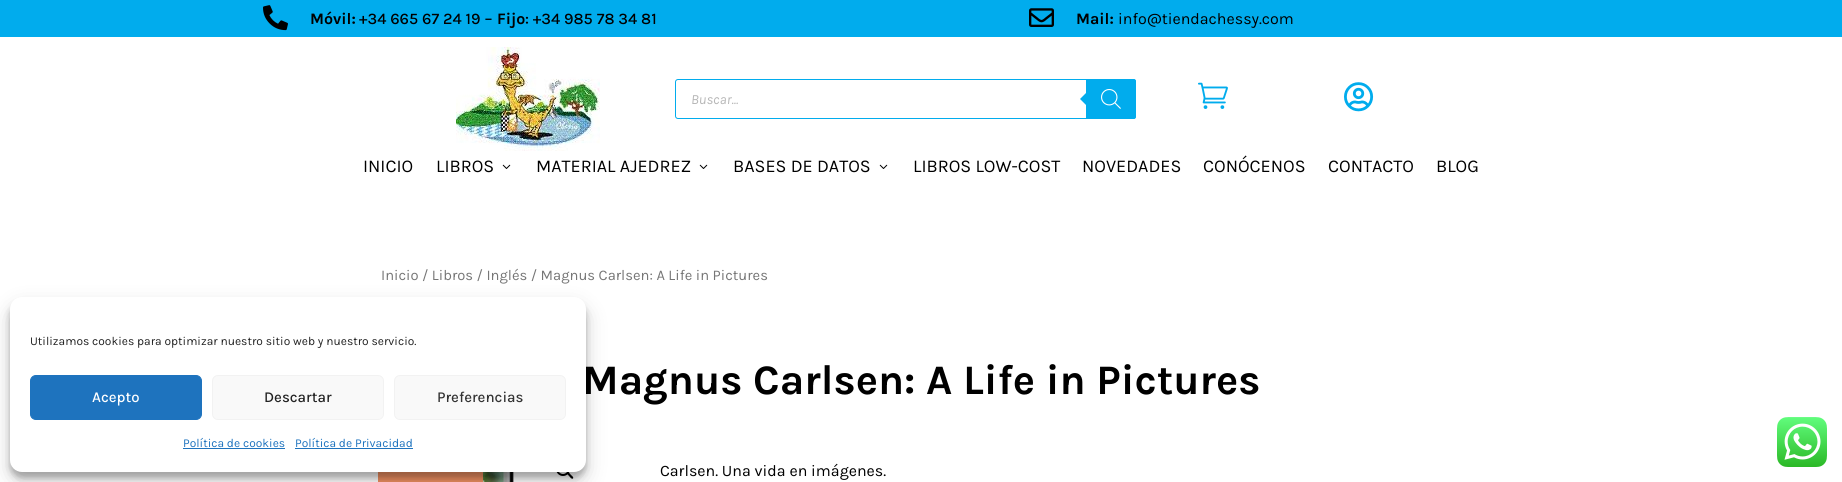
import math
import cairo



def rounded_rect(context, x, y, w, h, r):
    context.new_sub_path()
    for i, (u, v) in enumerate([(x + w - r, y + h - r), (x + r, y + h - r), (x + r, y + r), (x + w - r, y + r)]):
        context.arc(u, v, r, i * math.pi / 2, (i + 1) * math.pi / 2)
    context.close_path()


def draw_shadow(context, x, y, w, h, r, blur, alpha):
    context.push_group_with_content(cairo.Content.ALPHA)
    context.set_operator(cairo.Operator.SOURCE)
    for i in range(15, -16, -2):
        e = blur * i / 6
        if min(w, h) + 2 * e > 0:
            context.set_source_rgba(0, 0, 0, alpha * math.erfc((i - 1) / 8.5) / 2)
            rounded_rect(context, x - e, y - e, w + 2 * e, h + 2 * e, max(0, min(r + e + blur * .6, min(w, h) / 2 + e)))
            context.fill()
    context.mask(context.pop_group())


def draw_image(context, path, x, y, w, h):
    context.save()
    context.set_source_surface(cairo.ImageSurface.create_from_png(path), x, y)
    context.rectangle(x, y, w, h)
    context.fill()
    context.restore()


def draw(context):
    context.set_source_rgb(1, 1, 1)
    context.paint()
    context.set_source_rgb(239 / 255, 143 / 255, 97 / 255)
    context.rectangle(378, 472, 105, 10)
    context.fill()
    draw_image(context, "images/8.png", 483, 472, 31, 10)
    context.arc(563, 469, 6, 0, 2 * math.pi)
    context.set_source_rgb(0, 0, 0)
    context.stroke()
    context.new_path()
    context.move_to(567.5, 472.5)
    context.curve_to(568.5, 471.5, 570, 474, 571, 475)
    context.curve_to(571.5, 475.5, 574, 477, 573, 478.5)
    context.curve_to(571.5, 479.5, 570, 477, 569.5, 476.5)
    context.curve_to(569, 475.5, 566, 474, 567.5, 472.5)
    context.close_path()
    context.fill()
    context.set_source_rgb(0, 0, 0)
    draw_shadow(context, 10, 303, 576, 175, 12, 3, 0.23)
    draw_shadow(context, 10, 307, 576, 175, 12, 10, 0.19)
    context.set_source_rgb(1 / 255, 172 / 255, 237 / 255)
    context.rectangle(0, 0, 1842, 37)
    context.fill()
    draw_image(context, "images/1.png", 263, 5, 25, 26)
    draw_image(context, "images/2.png", 1029, 8, 25, 19)
    draw_image(context, "images/3.png", 456, 47, 144, 104)
    rounded_rect(context, 675.5, 79.5, 460, 39, 2.5)
    context.set_line_width(1)
    context.stroke()
    context.new_path()
    context.move_to(1086, 79)
    context.line_to(1134, 79)
    context.curve_to(1135, 79, 1136, 80, 1136, 81)
    context.line_to(1136, 117)
    context.curve_to(1136, 118, 1135, 119, 1134, 119)
    context.line_to(1086, 119)
    context.close_path()
    context.fill()
    context.new_path()
    context.move_to(1088, 91)
    context.line_to(1088, 107)
    context.line_to(1080, 99)
    context.close_path()
    context.fill()
    draw_image(context, "images/4.png", 1101, 89, 20, 20)
    draw_image(context, "images/5.png", 1198, 82, 30, 27)
    draw_image(context, "images/6.png", 1344, 82, 30, 30)
    draw_image(context, "images/7.png", 502, 164, 9, 5)
    draw_image(context, "images/7.png", 699, 164, 9, 5)
    draw_image(context, "images/7.png", 879, 164, 9, 5)
    draw_image(context, "images/9.png", 1777, 417, 50, 50)
    context.select_font_face("Karla", cairo.FontSlant.NORMAL, cairo.FontWeight.BOLD)
    context.set_font_size(16)
    context.set_source_rgb(0, 0, 0)
    context.move_to(310, 24)
    context.show_text("Móvil:")
    context.select_font_face("Karla Medium")
    context.move_to(359, 24)
    context.show_text("+34 665 67 24 19 –")
    context.select_font_face("Karla", cairo.FontSlant.NORMAL, cairo.FontWeight.BOLD)
    context.move_to(497, 24)
    context.show_text("Fijo")
    context.select_font_face("Karla Medium")
    context.move_to(525, 24)
    context.show_text(": +34 985 78 34 81")
    context.select_font_face("Karla", cairo.FontSlant.NORMAL, cairo.FontWeight.BOLD)
    context.move_to(1076, 24)
    context.show_text("Mail:")
    context.select_font_face("Karla")
    context.move_to(1118, 24)
    context.show_text("info@tiendachessy.com")
    context.select_font_face("Karla", cairo.FontSlant.ITALIC)
    context.set_font_size(14)
    context.set_source_rgb(182 / 255, 182 / 255, 182 / 255)
    context.move_to(691, 104)
    context.show_text("Buscar...")
    context.select_font_face("Karla")
    context.set_font_size(18)
    context.set_source_rgb(0, 0, 0)
    context.move_to(363, 172)
    context.show_text("INICIO")
    context.move_to(436, 172)
    context.show_text("LIBROS")
    context.move_to(536, 172)
    context.show_text("MATERIAL AJEDREZ")
    context.move_to(733, 172)
    context.show_text("BASES DE DATOS")
    context.move_to(913, 172)
    context.show_text("LIBROS LOW-COST")
    context.move_to(1082, 172)
    context.show_text("NOVEDADES")
    context.move_to(1203, 172)
    context.show_text("CONÓCENOS")
    context.move_to(1328, 172)
    context.show_text("CONTACTO")
    context.move_to(1436, 172)
    context.show_text("BLOG")
    context.set_font_size(14.75)
    context.set_source_rgb(118 / 255, 118 / 255, 118 / 255)
    context.move_to(381, 280)
    context.show_text("Inicio / Libros / Inglés / Magnus Carlsen: A Life in Pictures")
    context.select_font_face("Karla", cairo.FontSlant.NORMAL, cairo.FontWeight.BOLD)
    context.set_font_size(42)
    context.set_source_rgb(0, 0, 0)
    context.move_to(582, 394)
    context.show_text("Magnus Carlsen: A Life in Pictures")
    context.set_source_rgb(1, 1, 1)
    rounded_rect(context, 10, 297, 576, 175, 12)
    context.fill()
    context.select_font_face("Karla")
    context.set_font_size(12)
    context.set_source_rgb(34 / 255, 34 / 255, 34 / 255)
    context.move_to(30, 345)
    context.show_text("Utilizamos cookies para optimizar nuestro sitio web y nuestro servicio.")
    context.set_source_rgb(30 / 255, 115 / 255, 190 / 255)
    context.move_to(295, 447)
    context.show_text("Política de Privacidad")
    context.rectangle(295, 448, 118, 1)
    context.fill()
    context.move_to(183, 447)
    context.show_text("Política de cookies")
    context.rectangle(183, 448, 102, 1)
    context.fill()
    context.set_source_rgb(249 / 255, 249 / 255, 249 / 255)
    rounded_rect(context, 394.5, 375.5, 171, 44, 5.5)
    context.fill_preserve()
    context.set_source_rgb(242 / 255, 242 / 255, 242 / 255)
    context.stroke()
    context.select_font_face("Karla Medium")
    context.set_font_size(15)
    context.set_source_rgb(51 / 255, 51 / 255, 51 / 255)
    context.move_to(437, 402)
    context.show_text("Preferencias")
    context.set_source_rgb(249 / 255, 249 / 255, 249 / 255)
    rounded_rect(context, 212.5, 375.5, 171, 44, 5.5)
    context.fill_preserve()
    context.set_source_rgb(242 / 255, 242 / 255, 242 / 255)
    context.stroke()
    context.set_source_rgb(34 / 255, 34 / 255, 34 / 255)
    context.move_to(264, 402)
    context.show_text("Descartar")
    context.set_source_rgb(30 / 255, 115 / 255, 190 / 255)
    rounded_rect(context, 30.5, 375.5, 171, 44, 5.5)
    context.fill_preserve()
    context.stroke()
    context.set_source_rgb(1, 1, 1)
    context.move_to(92, 402)
    context.show_text("Acepto")
    context.select_font_face("Karla")
    context.set_font_size(16)
    context.set_source_rgb(0, 0, 0)
    context.move_to(660, 476)
    context.show_text("Carlsen. Una vida en imágenes.")


surface = cairo.ImageSurface(cairo.Format.RGB24, 1842, 482)
context = cairo.Context(surface)
options = cairo.FontOptions()
options.set_hint_metrics(cairo.HintMetrics.OFF)
options.set_hint_style(cairo.HintStyle.NONE)
context.set_font_options(options)
context.set_miter_limit(4)
draw(context)
surface.write_to_png("out.png")
